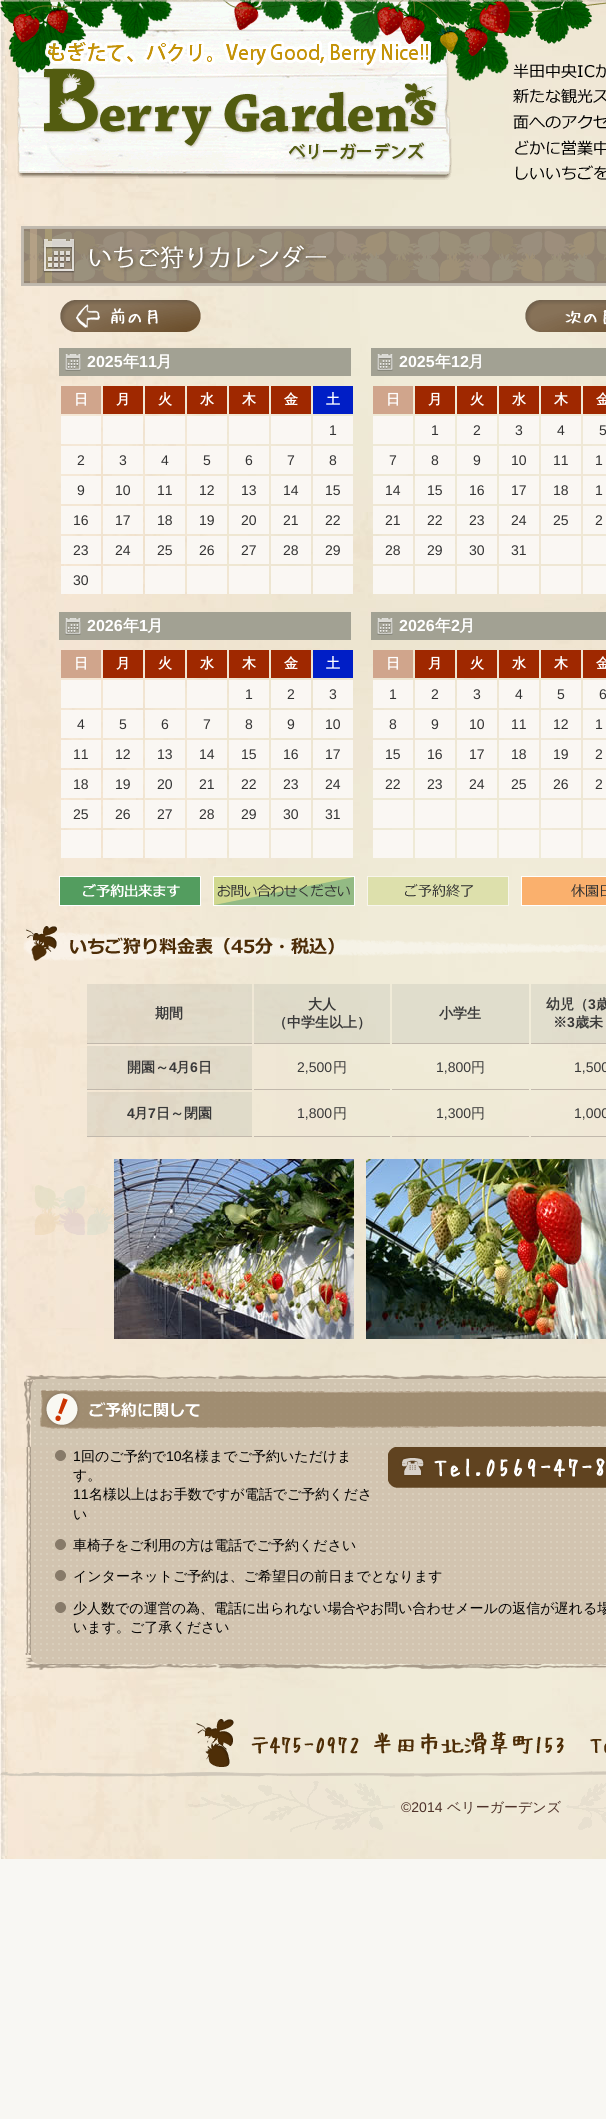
import math
import cairo



def draw_image(context, path, x, y, w, h):
    context.save()
    context.set_source_surface(cairo.ImageSurface.create_from_png(path), x, y)
    context.rectangle(x, y, w, h)
    context.fill()
    context.restore()


def draw(context):
    context.set_source_rgb(248 / 255, 247 / 255, 243 / 255)
    context.paint()
    draw_image(context, "images/1.png", 0, 0, 606, 1859)
    draw_image(context, "images/2.png", 0, 0, 490, 180)
    draw_image(context, "images/3.png", 490, 0, 116, 180)
    draw_image(context, "images/4.png", 21, 226, 585, 60)
    draw_image(context, "images/5.png", 60, 300, 141, 32)
    draw_image(context, "images/6.png", 525, 300, 81, 32)
    draw_image(context, "images/7.png", 59, 348, 292, 28)
    context.set_source_rgb(208 / 255, 165 / 255, 140 / 255)
    context.rectangle(61, 386, 40, 28)
    context.fill()
    context.set_source_rgb(159 / 255, 40 / 255, 0)
    context.rectangle(103, 386, 40, 28)
    context.fill()
    context.rectangle(145, 386, 40, 28)
    context.fill()
    context.rectangle(187, 386, 40, 28)
    context.fill()
    context.rectangle(229, 386, 40, 28)
    context.fill()
    context.rectangle(271, 386, 40, 28)
    context.fill()
    context.set_source_rgb(0, 30 / 255, 198 / 255)
    context.rectangle(313, 386, 40, 28)
    context.fill()
    context.set_source_rgb(250 / 255, 247 / 255, 243 / 255)
    context.rectangle(61, 416, 40, 28)
    context.fill()
    context.rectangle(103, 416, 40, 28)
    context.fill()
    context.rectangle(145, 416, 40, 28)
    context.fill()
    context.rectangle(187, 416, 40, 28)
    context.fill()
    context.rectangle(229, 416, 40, 28)
    context.fill()
    context.rectangle(271, 416, 40, 28)
    context.fill()
    context.rectangle(313, 416, 40, 28)
    context.fill()
    context.rectangle(61, 446, 40, 28)
    context.fill()
    context.rectangle(103, 446, 40, 28)
    context.fill()
    context.rectangle(145, 446, 40, 28)
    context.fill()
    context.rectangle(187, 446, 40, 28)
    context.fill()
    context.rectangle(229, 446, 40, 28)
    context.fill()
    context.rectangle(271, 446, 40, 28)
    context.fill()
    context.rectangle(313, 446, 40, 28)
    context.fill()
    context.rectangle(61, 476, 40, 28)
    context.fill()
    context.rectangle(103, 476, 40, 28)
    context.fill()
    context.rectangle(145, 476, 40, 28)
    context.fill()
    context.rectangle(187, 476, 40, 28)
    context.fill()
    context.rectangle(229, 476, 40, 28)
    context.fill()
    context.rectangle(271, 476, 40, 28)
    context.fill()
    context.rectangle(313, 476, 40, 28)
    context.fill()
    context.rectangle(61, 506, 40, 28)
    context.fill()
    context.rectangle(103, 506, 40, 28)
    context.fill()
    context.rectangle(145, 506, 40, 28)
    context.fill()
    context.rectangle(187, 506, 40, 28)
    context.fill()
    context.rectangle(229, 506, 40, 28)
    context.fill()
    context.rectangle(271, 506, 40, 28)
    context.fill()
    context.rectangle(313, 506, 40, 28)
    context.fill()
    context.rectangle(61, 536, 40, 28)
    context.fill()
    context.rectangle(103, 536, 40, 28)
    context.fill()
    context.rectangle(145, 536, 40, 28)
    context.fill()
    context.rectangle(187, 536, 40, 28)
    context.fill()
    context.rectangle(229, 536, 40, 28)
    context.fill()
    context.rectangle(271, 536, 40, 28)
    context.fill()
    context.rectangle(313, 536, 40, 28)
    context.fill()
    context.rectangle(61, 566, 40, 28)
    context.fill()
    context.rectangle(103, 566, 40, 28)
    context.fill()
    context.rectangle(145, 566, 40, 28)
    context.fill()
    context.rectangle(187, 566, 40, 28)
    context.fill()
    context.rectangle(229, 566, 40, 28)
    context.fill()
    context.rectangle(271, 566, 40, 28)
    context.fill()
    context.rectangle(313, 566, 40, 28)
    context.fill()
    draw_image(context, "images/8.png", 371, 348, 235, 28)
    context.set_source_rgb(208 / 255, 165 / 255, 140 / 255)
    context.rectangle(373, 386, 40, 28)
    context.fill()
    context.set_source_rgb(159 / 255, 40 / 255, 0)
    context.rectangle(415, 386, 40, 28)
    context.fill()
    context.rectangle(457, 386, 40, 28)
    context.fill()
    context.rectangle(499, 386, 40, 28)
    context.fill()
    context.rectangle(541, 386, 40, 28)
    context.fill()
    context.rectangle(583, 386, 23, 28)
    context.fill()
    context.set_source_rgb(250 / 255, 247 / 255, 243 / 255)
    context.rectangle(373, 416, 40, 28)
    context.fill()
    context.rectangle(415, 416, 40, 28)
    context.fill()
    context.rectangle(457, 416, 40, 28)
    context.fill()
    context.rectangle(499, 416, 40, 28)
    context.fill()
    context.rectangle(541, 416, 40, 28)
    context.fill()
    context.rectangle(583, 416, 23, 28)
    context.fill()
    context.rectangle(373, 446, 40, 28)
    context.fill()
    context.rectangle(415, 446, 40, 28)
    context.fill()
    context.rectangle(457, 446, 40, 28)
    context.fill()
    context.rectangle(499, 446, 40, 28)
    context.fill()
    context.rectangle(541, 446, 40, 28)
    context.fill()
    context.rectangle(583, 446, 23, 28)
    context.fill()
    context.rectangle(373, 476, 40, 28)
    context.fill()
    context.rectangle(415, 476, 40, 28)
    context.fill()
    context.rectangle(457, 476, 40, 28)
    context.fill()
    context.rectangle(499, 476, 40, 28)
    context.fill()
    context.rectangle(541, 476, 40, 28)
    context.fill()
    context.rectangle(583, 476, 23, 28)
    context.fill()
    context.rectangle(373, 506, 40, 28)
    context.fill()
    context.rectangle(415, 506, 40, 28)
    context.fill()
    context.rectangle(457, 506, 40, 28)
    context.fill()
    context.rectangle(499, 506, 40, 28)
    context.fill()
    context.rectangle(541, 506, 40, 28)
    context.fill()
    context.rectangle(583, 506, 23, 28)
    context.fill()
    context.rectangle(373, 536, 40, 28)
    context.fill()
    context.rectangle(415, 536, 40, 28)
    context.fill()
    context.rectangle(457, 536, 40, 28)
    context.fill()
    context.rectangle(499, 536, 40, 28)
    context.fill()
    context.rectangle(541, 536, 40, 28)
    context.fill()
    context.rectangle(583, 536, 23, 28)
    context.fill()
    context.rectangle(373, 566, 40, 28)
    context.fill()
    context.rectangle(415, 566, 40, 28)
    context.fill()
    context.rectangle(457, 566, 40, 28)
    context.fill()
    context.rectangle(499, 566, 40, 28)
    context.fill()
    context.rectangle(541, 566, 40, 28)
    context.fill()
    context.rectangle(583, 566, 23, 28)
    context.fill()
    draw_image(context, "images/7.png", 59, 612, 292, 28)
    context.set_source_rgb(208 / 255, 165 / 255, 140 / 255)
    context.rectangle(61, 650, 40, 28)
    context.fill()
    context.set_source_rgb(159 / 255, 40 / 255, 0)
    context.rectangle(103, 650, 40, 28)
    context.fill()
    context.rectangle(145, 650, 40, 28)
    context.fill()
    context.rectangle(187, 650, 40, 28)
    context.fill()
    context.rectangle(229, 650, 40, 28)
    context.fill()
    context.rectangle(271, 650, 40, 28)
    context.fill()
    context.set_source_rgb(0, 30 / 255, 198 / 255)
    context.rectangle(313, 650, 40, 28)
    context.fill()
    context.set_source_rgb(250 / 255, 247 / 255, 243 / 255)
    context.rectangle(61, 680, 40, 28)
    context.fill()
    context.rectangle(103, 680, 40, 28)
    context.fill()
    context.rectangle(145, 680, 40, 28)
    context.fill()
    context.rectangle(187, 680, 40, 28)
    context.fill()
    context.rectangle(229, 680, 40, 28)
    context.fill()
    context.rectangle(271, 680, 40, 28)
    context.fill()
    context.rectangle(313, 680, 40, 28)
    context.fill()
    context.rectangle(61, 710, 40, 28)
    context.fill()
    context.rectangle(103, 710, 40, 28)
    context.fill()
    context.rectangle(145, 710, 40, 28)
    context.fill()
    context.rectangle(187, 710, 40, 28)
    context.fill()
    context.rectangle(229, 710, 40, 28)
    context.fill()
    context.rectangle(271, 710, 40, 28)
    context.fill()
    context.rectangle(313, 710, 40, 28)
    context.fill()
    context.rectangle(61, 740, 40, 28)
    context.fill()
    context.rectangle(103, 740, 40, 28)
    context.fill()
    context.rectangle(145, 740, 40, 28)
    context.fill()
    context.rectangle(187, 740, 40, 28)
    context.fill()
    context.rectangle(229, 740, 40, 28)
    context.fill()
    context.rectangle(271, 740, 40, 28)
    context.fill()
    context.rectangle(313, 740, 40, 28)
    context.fill()
    context.rectangle(61, 770, 40, 28)
    context.fill()
    context.rectangle(103, 770, 40, 28)
    context.fill()
    context.rectangle(145, 770, 40, 28)
    context.fill()
    context.rectangle(187, 770, 40, 28)
    context.fill()
    context.rectangle(229, 770, 40, 28)
    context.fill()
    context.rectangle(271, 770, 40, 28)
    context.fill()
    context.rectangle(313, 770, 40, 28)
    context.fill()
    context.rectangle(61, 800, 40, 28)
    context.fill()
    context.rectangle(103, 800, 40, 28)
    context.fill()
    context.rectangle(145, 800, 40, 28)
    context.fill()
    context.rectangle(187, 800, 40, 28)
    context.fill()
    context.rectangle(229, 800, 40, 28)
    context.fill()
    context.rectangle(271, 800, 40, 28)
    context.fill()
    context.rectangle(313, 800, 40, 28)
    context.fill()
    context.rectangle(61, 830, 40, 28)
    context.fill()
    context.rectangle(103, 830, 40, 28)
    context.fill()
    context.rectangle(145, 830, 40, 28)
    context.fill()
    context.rectangle(187, 830, 40, 28)
    context.fill()
    context.rectangle(229, 830, 40, 28)
    context.fill()
    context.rectangle(271, 830, 40, 28)
    context.fill()
    context.rectangle(313, 830, 40, 28)
    context.fill()
    draw_image(context, "images/8.png", 371, 612, 235, 28)
    context.set_source_rgb(208 / 255, 165 / 255, 140 / 255)
    context.rectangle(373, 650, 40, 28)
    context.fill()
    context.set_source_rgb(159 / 255, 40 / 255, 0)
    context.rectangle(415, 650, 40, 28)
    context.fill()
    context.rectangle(457, 650, 40, 28)
    context.fill()
    context.rectangle(499, 650, 40, 28)
    context.fill()
    context.rectangle(541, 650, 40, 28)
    context.fill()
    context.rectangle(583, 650, 23, 28)
    context.fill()
    context.set_source_rgb(250 / 255, 247 / 255, 243 / 255)
    context.rectangle(373, 680, 40, 28)
    context.fill()
    context.rectangle(415, 680, 40, 28)
    context.fill()
    context.rectangle(457, 680, 40, 28)
    context.fill()
    context.rectangle(499, 680, 40, 28)
    context.fill()
    context.rectangle(541, 680, 40, 28)
    context.fill()
    context.rectangle(583, 680, 23, 28)
    context.fill()
    context.rectangle(373, 710, 40, 28)
    context.fill()
    context.rectangle(415, 710, 40, 28)
    context.fill()
    context.rectangle(457, 710, 40, 28)
    context.fill()
    context.rectangle(499, 710, 40, 28)
    context.fill()
    context.rectangle(541, 710, 40, 28)
    context.fill()
    context.rectangle(583, 710, 23, 28)
    context.fill()
    context.rectangle(373, 740, 40, 28)
    context.fill()
    context.rectangle(415, 740, 40, 28)
    context.fill()
    context.rectangle(457, 740, 40, 28)
    context.fill()
    context.rectangle(499, 740, 40, 28)
    context.fill()
    context.rectangle(541, 740, 40, 28)
    context.fill()
    context.rectangle(583, 740, 23, 28)
    context.fill()
    context.rectangle(373, 770, 40, 28)
    context.fill()
    context.rectangle(415, 770, 40, 28)
    context.fill()
    context.rectangle(457, 770, 40, 28)
    context.fill()
    context.rectangle(499, 770, 40, 28)
    context.fill()
    context.rectangle(541, 770, 40, 28)
    context.fill()
    context.rectangle(583, 770, 23, 28)
    context.fill()
    context.rectangle(373, 800, 40, 28)
    context.fill()
    context.rectangle(415, 800, 40, 28)
    context.fill()
    context.rectangle(457, 800, 40, 28)
    context.fill()
    context.rectangle(499, 800, 40, 28)
    context.fill()
    context.rectangle(541, 800, 40, 28)
    context.fill()
    context.rectangle(583, 800, 23, 28)
    context.fill()
    context.rectangle(373, 830, 40, 28)
    context.fill()
    context.rectangle(415, 830, 40, 28)
    context.fill()
    context.rectangle(457, 830, 40, 28)
    context.fill()
    context.rectangle(499, 830, 40, 28)
    context.fill()
    context.rectangle(541, 830, 40, 28)
    context.fill()
    context.rectangle(583, 830, 23, 28)
    context.fill()
    draw_image(context, "images/9.png", 59, 876, 142, 30)
    draw_image(context, "images/10.png", 213, 876, 142, 30)
    draw_image(context, "images/11.png", 367, 876, 142, 30)
    draw_image(context, "images/12.png", 521, 876, 85, 30)
    draw_image(context, "images/13.png", 23, 926, 583, 35)
    context.set_source_rgba(160 / 255, 165 / 255, 155 / 255, 0.2)
    context.rectangle(87, 984, 165, 59)
    context.fill()
    context.set_source_rgb(193 / 255, 184 / 255, 172 / 255)
    context.rectangle(87, 1043, 165, 1)
    context.fill()
    context.set_source_rgba(160 / 255, 165 / 255, 155 / 255, 0.2)
    context.rectangle(254, 984, 136, 59)
    context.fill()
    context.set_source_rgb(193 / 255, 184 / 255, 172 / 255)
    context.rectangle(254, 1043, 136, 1)
    context.fill()
    context.set_source_rgb(224 / 255, 221 / 255, 204 / 255)
    context.rectangle(392, 984, 137, 59)
    context.fill()
    context.set_source_rgb(193 / 255, 184 / 255, 172 / 255)
    context.rectangle(392, 1043, 137, 1)
    context.fill()
    context.set_source_rgba(160 / 255, 165 / 255, 155 / 255, 0.2)
    context.rectangle(531, 984, 75, 59)
    context.fill()
    context.set_source_rgb(193 / 255, 184 / 255, 172 / 255)
    context.rectangle(531, 1043, 75, 1)
    context.fill()
    context.set_source_rgba(160 / 255, 165 / 255, 155 / 255, 0.2)
    context.rectangle(87, 1046, 165, 43)
    context.fill()
    context.set_source_rgb(193 / 255, 184 / 255, 172 / 255)
    context.rectangle(87, 1089, 165, 1)
    context.fill()
    context.rectangle(254, 1089, 136, 1)
    context.fill()
    context.rectangle(392, 1089, 137, 1)
    context.fill()
    context.rectangle(531, 1089, 75, 1)
    context.fill()
    context.set_source_rgba(160 / 255, 165 / 255, 155 / 255, 0.2)
    context.rectangle(87, 1092, 165, 44)
    context.fill()
    context.set_source_rgb(193 / 255, 184 / 255, 172 / 255)
    context.rectangle(87, 1136, 165, 1)
    context.fill()
    context.rectangle(254, 1136, 136, 1)
    context.fill()
    context.rectangle(392, 1136, 137, 1)
    context.fill()
    context.rectangle(531, 1136, 75, 1)
    context.fill()
    draw_image(context, "images/14.png", 34, 1185, 80, 50)
    draw_image(context, "images/15.png", 114, 1159, 240, 180)
    draw_image(context, "images/16.png", 366, 1159, 240, 180)
    draw_image(context, "images/17.png", 24, 1375, 582, 72)
    draw_image(context, "images/18.png", 26, 1447, 580, 206)
    draw_image(context, "images/19.png", 55, 1450, 11, 11)
    draw_image(context, "images/20.png", 388, 1447, 218, 41)
    draw_image(context, "images/21.png", 55, 1539, 11, 11)
    draw_image(context, "images/19.png", 55, 1570, 11, 11)
    draw_image(context, "images/22.png", 55, 1602, 11, 11)
    draw_image(context, "images/23.png", 25, 1653, 581, 17)
    draw_image(context, "images/24.png", 196, 1719, 410, 48)
    draw_image(context, "images/25.png", 0, 1771, 606, 61)
    context.select_font_face("Liberation Sans", cairo.FontSlant.NORMAL, cairo.FontWeight.BOLD)
    context.set_font_size(16)
    context.set_source_rgb(1, 1, 1)
    context.move_to(87, 367)
    context.show_text("2025")
    context.select_font_face("WenQuanYi Zen Hei", cairo.FontSlant.NORMAL, cairo.FontWeight.BOLD)
    context.move_to(123, 367)
    context.show_text("年")
    context.select_font_face("Liberation Sans", cairo.FontSlant.NORMAL, cairo.FontWeight.BOLD)
    context.move_to(139, 367)
    context.show_text("11")
    context.select_font_face("WenQuanYi Zen Hei", cairo.FontSlant.NORMAL, cairo.FontWeight.BOLD)
    context.move_to(156, 367)
    context.show_text("月")
    context.set_font_size(14)
    context.move_to(74, 404)
    context.show_text("日")
    context.move_to(116, 404)
    context.show_text("月")
    context.move_to(158, 404)
    context.show_text("火")
    context.move_to(200, 404)
    context.show_text("水")
    context.move_to(242, 404)
    context.show_text("木")
    context.move_to(284, 404)
    context.show_text("金")
    context.move_to(326, 404)
    context.show_text("土")
    context.select_font_face("Liberation Sans")
    context.set_source_rgb(51 / 255, 51 / 255, 51 / 255)
    context.move_to(329, 435)
    context.show_text("1")
    context.move_to(77, 465)
    context.show_text("2")
    context.move_to(119, 465)
    context.show_text("3")
    context.move_to(161, 465)
    context.show_text("4")
    context.move_to(203, 465)
    context.show_text("5")
    context.move_to(245, 465)
    context.show_text("6")
    context.move_to(287, 465)
    context.show_text("7")
    context.move_to(329, 465)
    context.show_text("8")
    context.move_to(77, 495)
    context.show_text("9")
    context.move_to(115, 495)
    context.show_text("10")
    context.move_to(157, 495)
    context.show_text("11")
    context.move_to(199, 495)
    context.show_text("12")
    context.move_to(241, 495)
    context.show_text("13")
    context.move_to(283, 495)
    context.show_text("14")
    context.move_to(325, 495)
    context.show_text("15")
    context.move_to(73, 525)
    context.show_text("16")
    context.move_to(115, 525)
    context.show_text("17")
    context.move_to(157, 525)
    context.show_text("18")
    context.move_to(199, 525)
    context.show_text("19")
    context.move_to(241, 525)
    context.show_text("20")
    context.move_to(283, 525)
    context.show_text("21")
    context.move_to(325, 525)
    context.show_text("22")
    context.move_to(73, 555)
    context.show_text("23")
    context.move_to(115, 555)
    context.show_text("24")
    context.move_to(157, 555)
    context.show_text("25")
    context.move_to(199, 555)
    context.show_text("26")
    context.move_to(241, 555)
    context.show_text("27")
    context.move_to(283, 555)
    context.show_text("28")
    context.move_to(325, 555)
    context.show_text("29")
    context.move_to(73, 585)
    context.show_text("30")
    context.select_font_face("Liberation Sans", cairo.FontSlant.NORMAL, cairo.FontWeight.BOLD)
    context.set_font_size(16)
    context.set_source_rgb(1, 1, 1)
    context.move_to(399, 367)
    context.show_text("2025")
    context.select_font_face("WenQuanYi Zen Hei", cairo.FontSlant.NORMAL, cairo.FontWeight.BOLD)
    context.move_to(435, 367)
    context.show_text("年")
    context.select_font_face("Liberation Sans", cairo.FontSlant.NORMAL, cairo.FontWeight.BOLD)
    context.move_to(451, 367)
    context.show_text("12")
    context.select_font_face("WenQuanYi Zen Hei", cairo.FontSlant.NORMAL, cairo.FontWeight.BOLD)
    context.move_to(468, 367)
    context.show_text("月")
    context.set_font_size(14)
    context.move_to(386, 404)
    context.show_text("日")
    context.move_to(428, 404)
    context.show_text("月")
    context.move_to(470, 404)
    context.show_text("火")
    context.move_to(512, 404)
    context.show_text("水")
    context.move_to(554, 404)
    context.show_text("木")
    context.move_to(596, 404)
    context.show_text("金")
    context.select_font_face("Liberation Sans")
    context.set_source_rgb(51 / 255, 51 / 255, 51 / 255)
    context.move_to(431, 435)
    context.show_text("1")
    context.move_to(473, 435)
    context.show_text("2")
    context.move_to(515, 435)
    context.show_text("3")
    context.move_to(557, 435)
    context.show_text("4")
    context.move_to(599, 435)
    context.show_text("5")
    context.move_to(389, 465)
    context.show_text("7")
    context.move_to(431, 465)
    context.show_text("8")
    context.move_to(473, 465)
    context.show_text("9")
    context.move_to(511, 465)
    context.show_text("10")
    context.move_to(553, 465)
    context.show_text("11")
    context.move_to(595, 465)
    context.show_text("1")
    context.move_to(385, 495)
    context.show_text("14")
    context.move_to(427, 495)
    context.show_text("15")
    context.move_to(469, 495)
    context.show_text("16")
    context.move_to(511, 495)
    context.show_text("17")
    context.move_to(553, 495)
    context.show_text("18")
    context.move_to(595, 495)
    context.show_text("1")
    context.move_to(385, 525)
    context.show_text("21")
    context.move_to(427, 525)
    context.show_text("22")
    context.move_to(469, 525)
    context.show_text("23")
    context.move_to(511, 525)
    context.show_text("24")
    context.move_to(553, 525)
    context.show_text("25")
    context.move_to(595, 525)
    context.show_text("2")
    context.move_to(385, 555)
    context.show_text("28")
    context.move_to(427, 555)
    context.show_text("29")
    context.move_to(469, 555)
    context.show_text("30")
    context.move_to(511, 555)
    context.show_text("31")
    context.select_font_face("Liberation Sans", cairo.FontSlant.NORMAL, cairo.FontWeight.BOLD)
    context.set_font_size(16)
    context.set_source_rgb(1, 1, 1)
    context.move_to(87, 631)
    context.show_text("2026")
    context.select_font_face("WenQuanYi Zen Hei", cairo.FontSlant.NORMAL, cairo.FontWeight.BOLD)
    context.move_to(123, 631)
    context.show_text("年")
    context.select_font_face("Liberation Sans", cairo.FontSlant.NORMAL, cairo.FontWeight.BOLD)
    context.move_to(139, 631)
    context.show_text("1")
    context.select_font_face("WenQuanYi Zen Hei", cairo.FontSlant.NORMAL, cairo.FontWeight.BOLD)
    context.move_to(147, 631)
    context.show_text("月")
    context.set_font_size(14)
    context.move_to(74, 668)
    context.show_text("日")
    context.move_to(116, 668)
    context.show_text("月")
    context.move_to(158, 668)
    context.show_text("火")
    context.move_to(200, 668)
    context.show_text("水")
    context.move_to(242, 668)
    context.show_text("木")
    context.move_to(284, 668)
    context.show_text("金")
    context.move_to(326, 668)
    context.show_text("土")
    context.select_font_face("Liberation Sans")
    context.set_source_rgb(51 / 255, 51 / 255, 51 / 255)
    context.move_to(245, 699)
    context.show_text("1")
    context.move_to(287, 699)
    context.show_text("2")
    context.move_to(329, 699)
    context.show_text("3")
    context.move_to(77, 729)
    context.show_text("4")
    context.move_to(119, 729)
    context.show_text("5")
    context.move_to(161, 729)
    context.show_text("6")
    context.move_to(203, 729)
    context.show_text("7")
    context.move_to(245, 729)
    context.show_text("8")
    context.move_to(287, 729)
    context.show_text("9")
    context.move_to(325, 729)
    context.show_text("10")
    context.move_to(73, 759)
    context.show_text("11")
    context.move_to(115, 759)
    context.show_text("12")
    context.move_to(157, 759)
    context.show_text("13")
    context.move_to(199, 759)
    context.show_text("14")
    context.move_to(241, 759)
    context.show_text("15")
    context.move_to(283, 759)
    context.show_text("16")
    context.move_to(325, 759)
    context.show_text("17")
    context.move_to(73, 789)
    context.show_text("18")
    context.move_to(115, 789)
    context.show_text("19")
    context.move_to(157, 789)
    context.show_text("20")
    context.move_to(199, 789)
    context.show_text("21")
    context.move_to(241, 789)
    context.show_text("22")
    context.move_to(283, 789)
    context.show_text("23")
    context.move_to(325, 789)
    context.show_text("24")
    context.move_to(73, 819)
    context.show_text("25")
    context.move_to(115, 819)
    context.show_text("26")
    context.move_to(157, 819)
    context.show_text("27")
    context.move_to(199, 819)
    context.show_text("28")
    context.move_to(241, 819)
    context.show_text("29")
    context.move_to(283, 819)
    context.show_text("30")
    context.move_to(325, 819)
    context.show_text("31")
    context.select_font_face("Liberation Sans", cairo.FontSlant.NORMAL, cairo.FontWeight.BOLD)
    context.set_font_size(16)
    context.set_source_rgb(1, 1, 1)
    context.move_to(399, 631)
    context.show_text("2026")
    context.select_font_face("WenQuanYi Zen Hei", cairo.FontSlant.NORMAL, cairo.FontWeight.BOLD)
    context.move_to(435, 631)
    context.show_text("年")
    context.select_font_face("Liberation Sans", cairo.FontSlant.NORMAL, cairo.FontWeight.BOLD)
    context.move_to(451, 631)
    context.show_text("2")
    context.select_font_face("WenQuanYi Zen Hei", cairo.FontSlant.NORMAL, cairo.FontWeight.BOLD)
    context.move_to(459, 631)
    context.show_text("月")
    context.set_font_size(14)
    context.move_to(386, 668)
    context.show_text("日")
    context.move_to(428, 668)
    context.show_text("月")
    context.move_to(470, 668)
    context.show_text("火")
    context.move_to(512, 668)
    context.show_text("水")
    context.move_to(554, 668)
    context.show_text("木")
    context.move_to(596, 668)
    context.show_text("金")
    context.select_font_face("Liberation Sans")
    context.set_source_rgb(51 / 255, 51 / 255, 51 / 255)
    context.move_to(389, 699)
    context.show_text("1")
    context.move_to(431, 699)
    context.show_text("2")
    context.move_to(473, 699)
    context.show_text("3")
    context.move_to(515, 699)
    context.show_text("4")
    context.move_to(557, 699)
    context.show_text("5")
    context.move_to(599, 699)
    context.show_text("6")
    context.move_to(389, 729)
    context.show_text("8")
    context.move_to(431, 729)
    context.show_text("9")
    context.move_to(469, 729)
    context.show_text("10")
    context.move_to(511, 729)
    context.show_text("11")
    context.move_to(553, 729)
    context.show_text("12")
    context.move_to(595, 729)
    context.show_text("1")
    context.move_to(385, 759)
    context.show_text("15")
    context.move_to(427, 759)
    context.show_text("16")
    context.move_to(469, 759)
    context.show_text("17")
    context.move_to(511, 759)
    context.show_text("18")
    context.move_to(553, 759)
    context.show_text("19")
    context.move_to(595, 759)
    context.show_text("2")
    context.move_to(385, 789)
    context.show_text("22")
    context.move_to(427, 789)
    context.show_text("23")
    context.move_to(469, 789)
    context.show_text("24")
    context.move_to(511, 789)
    context.show_text("25")
    context.move_to(553, 789)
    context.show_text("26")
    context.move_to(595, 789)
    context.show_text("2")
    context.select_font_face("WenQuanYi Zen Hei", cairo.FontSlant.NORMAL, cairo.FontWeight.BOLD)
    context.set_source_rgb(57 / 255, 57 / 255, 57 / 255)
    context.move_to(155, 1018)
    context.show_text("期間")
    context.move_to(308, 1009)
    context.show_text("大人")
    context.move_to(273, 1027)
    context.show_text("（中学生以上）")
    context.move_to(439, 1018)
    context.show_text("小学生")
    context.move_to(546, 1009)
    context.show_text("幼児（")
    context.select_font_face("Liberation Sans", cairo.FontSlant.NORMAL, cairo.FontWeight.BOLD)
    context.move_to(588, 1009)
    context.show_text("3")
    context.select_font_face("WenQuanYi Zen Hei", cairo.FontSlant.NORMAL, cairo.FontWeight.BOLD)
    context.move_to(596, 1009)
    context.show_text("歳")
    context.move_to(553, 1027)
    context.show_text("※")
    context.select_font_face("Liberation Sans", cairo.FontSlant.NORMAL, cairo.FontWeight.BOLD)
    context.move_to(567, 1027)
    context.show_text("3")
    context.select_font_face("WenQuanYi Zen Hei", cairo.FontSlant.NORMAL, cairo.FontWeight.BOLD)
    context.move_to(575, 1027)
    context.show_text("歳未")
    context.move_to(127, 1072)
    context.show_text("開園～")
    context.select_font_face("Liberation Sans", cairo.FontSlant.NORMAL, cairo.FontWeight.BOLD)
    context.move_to(169, 1072)
    context.show_text("4")
    context.select_font_face("WenQuanYi Zen Hei", cairo.FontSlant.NORMAL, cairo.FontWeight.BOLD)
    context.move_to(176, 1072)
    context.show_text("月")
    context.select_font_face("Liberation Sans", cairo.FontSlant.NORMAL, cairo.FontWeight.BOLD)
    context.move_to(190, 1072)
    context.show_text("6")
    context.select_font_face("WenQuanYi Zen Hei", cairo.FontSlant.NORMAL, cairo.FontWeight.BOLD)
    context.move_to(198, 1072)
    context.show_text("日")
    context.select_font_face("Liberation Sans")
    context.move_to(297, 1072)
    context.show_text("2,500")
    context.select_font_face("WenQuanYi Zen Hei Medium")
    context.move_to(333, 1072)
    context.show_text("円")
    context.select_font_face("Liberation Sans")
    context.move_to(436, 1072)
    context.show_text("1,800")
    context.select_font_face("WenQuanYi Zen Hei Medium")
    context.move_to(471, 1072)
    context.show_text("円")
    context.select_font_face("Liberation Sans")
    context.move_to(574, 1072)
    context.show_text("1,500")
    context.select_font_face("Liberation Sans", cairo.FontSlant.NORMAL, cairo.FontWeight.BOLD)
    context.move_to(127, 1118)
    context.show_text("4")
    context.select_font_face("WenQuanYi Zen Hei", cairo.FontSlant.NORMAL, cairo.FontWeight.BOLD)
    context.move_to(134, 1118)
    context.show_text("月")
    context.select_font_face("Liberation Sans", cairo.FontSlant.NORMAL, cairo.FontWeight.BOLD)
    context.move_to(148, 1118)
    context.show_text("7")
    context.select_font_face("WenQuanYi Zen Hei", cairo.FontSlant.NORMAL, cairo.FontWeight.BOLD)
    context.move_to(156, 1118)
    context.show_text("日～閉園")
    context.select_font_face("Liberation Sans")
    context.move_to(297, 1118)
    context.show_text("1,800")
    context.select_font_face("WenQuanYi Zen Hei Medium")
    context.move_to(333, 1118)
    context.show_text("円")
    context.select_font_face("Liberation Sans")
    context.move_to(436, 1118)
    context.show_text("1,300")
    context.select_font_face("WenQuanYi Zen Hei Medium")
    context.move_to(471, 1118)
    context.show_text("円")
    context.select_font_face("Liberation Sans")
    context.move_to(574, 1118)
    context.show_text("1,000")
    context.set_source_rgb(0, 0, 0)
    context.move_to(73, 1461)
    context.show_text("1")
    context.select_font_face("WenQuanYi Zen Hei Medium")
    context.move_to(81, 1461)
    context.show_text("回のご予約で")
    context.select_font_face("Liberation Sans")
    context.move_to(166, 1461)
    context.show_text("10")
    context.select_font_face("WenQuanYi Zen Hei Medium")
    context.move_to(181, 1461)
    context.show_text("名様までご予約いただけま")
    context.move_to(73, 1480)
    context.show_text("す。")
    context.select_font_face("Liberation Sans")
    context.move_to(73, 1499)
    context.show_text("11")
    context.select_font_face("WenQuanYi Zen Hei Medium")
    context.move_to(89, 1499)
    context.show_text("名様以上はお手数ですが電話でご予約くださ")
    context.move_to(73, 1519)
    context.show_text("い")
    context.move_to(73, 1550)
    context.show_text("車椅子をご利用の方は電話でご予約ください")
    context.move_to(73, 1581)
    context.show_text("インターネットご予約は、ご希望日の前日までとなります")
    context.move_to(73, 1613)
    context.show_text("少人数での運営の為、電話に出られない場合やお問い合わせメールの返信が遅れる場")
    context.move_to(73, 1632)
    context.show_text("います。ご了承ください")
    context.select_font_face("Liberation Sans")
    context.set_source_rgb(77 / 255, 49 / 255, 40 / 255)
    context.move_to(401, 1812)
    context.show_text("©2014")
    context.select_font_face("WenQuanYi Zen Hei Medium")
    context.move_to(447, 1812)
    context.show_text("ベリーガーデンズ")


surface = cairo.ImageSurface(cairo.Format.RGB24, 606, 2119)
context = cairo.Context(surface)
options = cairo.FontOptions()
options.set_hint_metrics(cairo.HintMetrics.OFF)
options.set_hint_style(cairo.HintStyle.NONE)
context.set_font_options(options)
context.set_miter_limit(4)
draw(context)
surface.write_to_png("out.png")
